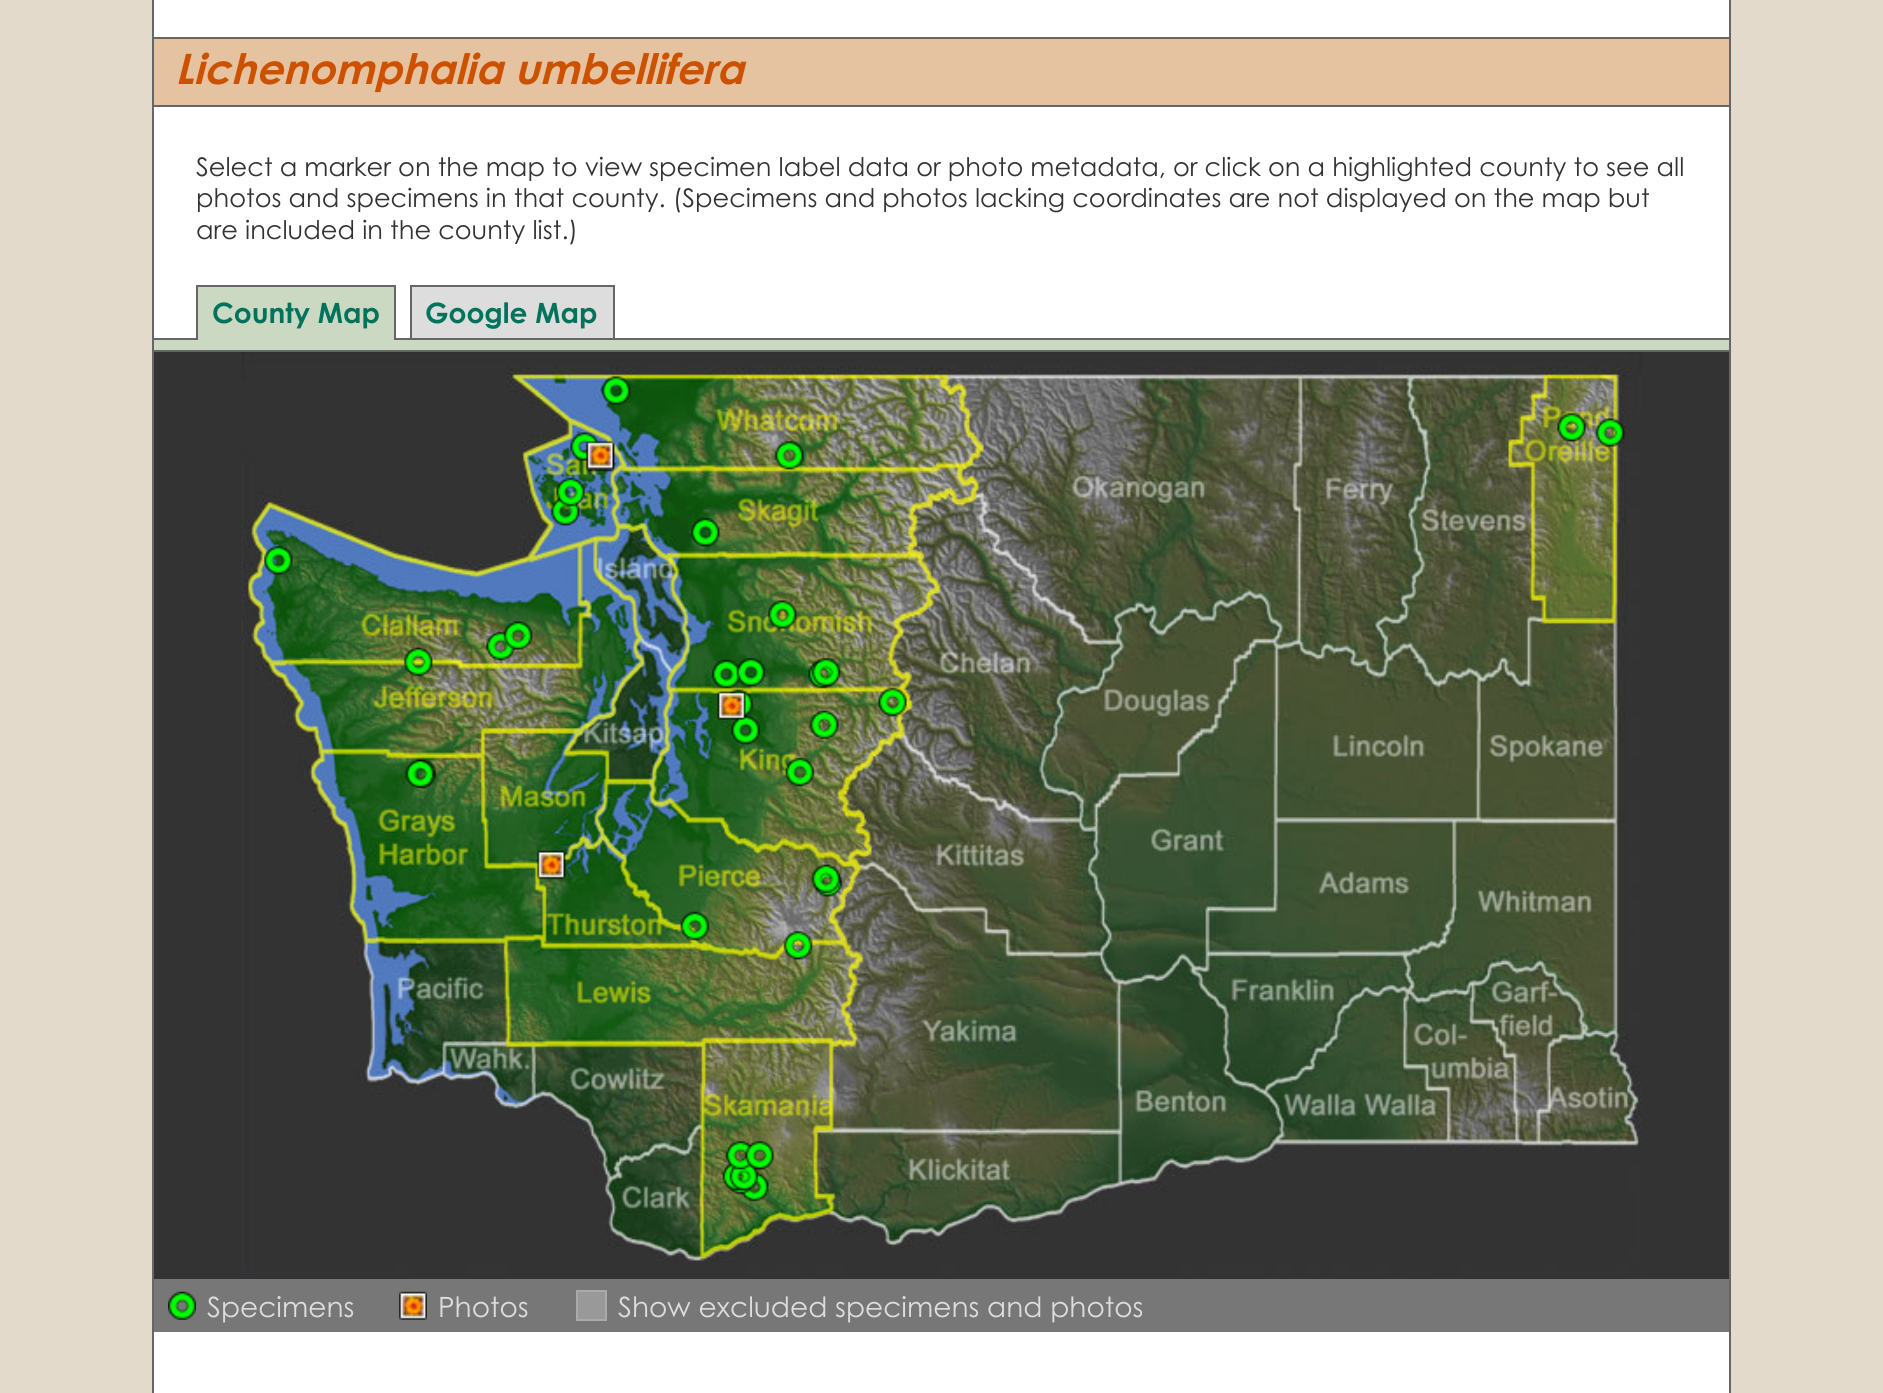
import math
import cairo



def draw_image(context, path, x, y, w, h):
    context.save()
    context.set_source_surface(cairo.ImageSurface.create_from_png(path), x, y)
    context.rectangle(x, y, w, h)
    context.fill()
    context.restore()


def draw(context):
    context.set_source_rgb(228 / 255, 218 / 255, 204 / 255)
    context.paint()
    context.set_source_rgb(1, 1, 1)
    context.rectangle(154, 0, 1575, 1393)
    context.fill()
    context.set_source_rgb(102 / 255, 102 / 255, 102 / 255)
    context.rectangle(1729, 0, 2, 1393)
    context.fill()
    context.rectangle(152, 0, 2, 1393)
    context.fill()
    context.set_source_rgb(229 / 255, 195 / 255, 161 / 255)
    context.rectangle(154, 39, 1575, 66)
    context.fill()
    context.set_source_rgb(102 / 255, 102 / 255, 102 / 255)
    context.rectangle(154, 37, 1575, 2)
    context.fill()
    context.rectangle(154, 105, 1575, 2)
    context.fill()
    context.rectangle(154, 338, 1575, 2)
    context.fill()
    context.set_source_rgb(203 / 255, 217 / 255, 195 / 255)
    context.rectangle(198, 287, 196, 53)
    context.fill()
    context.set_source_rgb(102 / 255, 102 / 255, 102 / 255)
    context.rectangle(196, 285, 200, 2)
    context.fill()
    context.rectangle(394, 285, 2, 55)
    context.fill()
    context.rectangle(196, 285, 2, 55)
    context.fill()
    context.set_source_rgb(221 / 255, 221 / 255, 221 / 255)
    context.rectangle(412, 287, 201, 51)
    context.fill()
    context.set_source_rgb(102 / 255, 102 / 255, 102 / 255)
    context.rectangle(410, 285, 204, 2)
    context.fill()
    context.rectangle(613, 285, 2, 53)
    context.fill()
    context.rectangle(410, 285, 2, 53)
    context.fill()
    context.set_source_rgb(203 / 255, 217 / 255, 195 / 255)
    context.rectangle(154, 340, 1575, 10)
    context.fill()
    context.set_source_rgb(102 / 255, 102 / 255, 102 / 255)
    context.rectangle(154, 350, 1575, 2)
    context.fill()
    context.set_source_rgb(51 / 255, 51 / 255, 51 / 255)
    context.rectangle(154, 352, 1575, 927)
    context.fill()
    draw_image(context, "images/1.png", 241, 352, 1401, 922)
    context.set_source_rgb(119 / 255, 119 / 255, 119 / 255)
    context.rectangle(154, 1279, 1575, 53)
    context.fill()
    draw_image(context, "images/2.png", 168, 1291, 28, 29)
    draw_image(context, "images/3.png", 399, 1291, 28, 29)
    context.set_source_rgb(153 / 255, 153 / 255, 153 / 255)
    context.rectangle(577, 1291, 29, 29)
    context.fill_preserve()
    context.set_source_rgb(170 / 255, 170 / 255, 170 / 255)
    context.stroke()
    context.select_font_face("Century Gothic", cairo.FontSlant.ITALIC, cairo.FontWeight.BOLD)
    context.set_font_size(42)
    context.set_source_rgb(204 / 255, 82 / 255, 0)
    context.move_to(175, 84)
    context.show_text("Lichenomphalia umbellifera")
    context.select_font_face("Century Gothic")
    context.set_font_size(25.67)
    context.set_source_rgb(51 / 255, 51 / 255, 51 / 255)
    context.move_to(196, 176)
    context.show_text("Select a marker on the map to view specimen label data or photo metadata, or click on a highlighted county to see all")
    context.move_to(196, 207)
    context.show_text("photos and specimens in that county. (Specimens and photos lacking coordinates are not displayed on the map but")
    context.move_to(196, 239)
    context.show_text("are included in the county list.)")
    context.select_font_face("Century Gothic", cairo.FontSlant.NORMAL, cairo.FontWeight.BOLD)
    context.set_font_size(28)
    context.set_source_rgb(0, 115 / 255, 92 / 255)
    context.move_to(212, 323)
    context.show_text("County Map")
    context.move_to(425, 323)
    context.show_text("Google Map")
    context.select_font_face("Century Gothic")
    context.set_source_rgb(221 / 255, 221 / 255, 221 / 255)
    context.move_to(207, 1317)
    context.show_text("Specimens")
    context.move_to(438, 1317)
    context.show_text("Photos")
    context.move_to(618, 1317)
    context.show_text("Show excluded specimens and photos")


surface = cairo.ImageSurface(cairo.Format.RGB24, 1883, 1393)
context = cairo.Context(surface)
options = cairo.FontOptions()
options.set_hint_metrics(cairo.HintMetrics.OFF)
options.set_hint_style(cairo.HintStyle.NONE)
context.set_font_options(options)
context.set_miter_limit(4)
draw(context)
surface.write_to_png("out.png")
